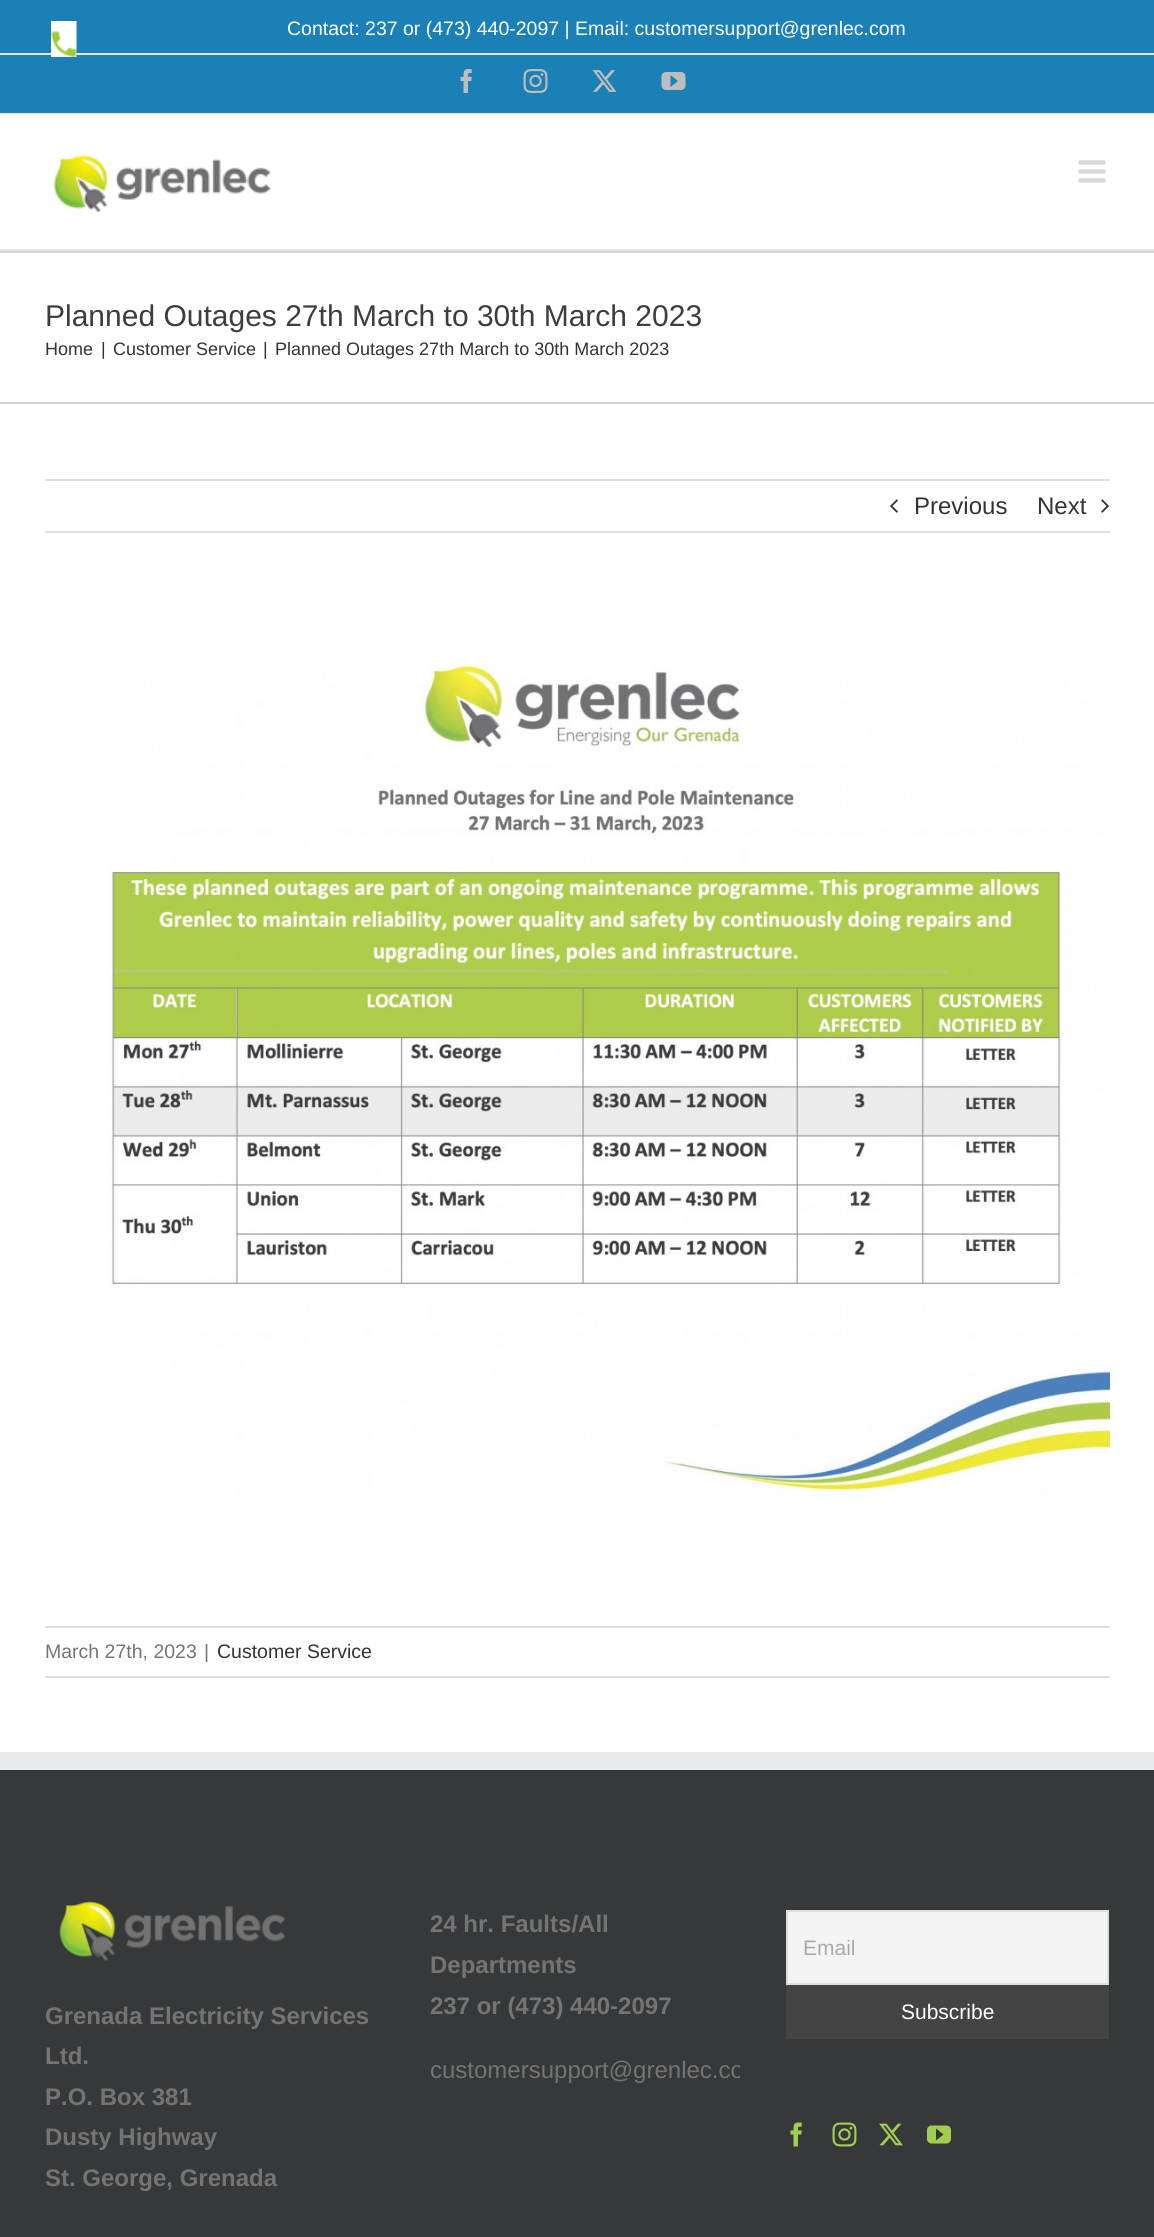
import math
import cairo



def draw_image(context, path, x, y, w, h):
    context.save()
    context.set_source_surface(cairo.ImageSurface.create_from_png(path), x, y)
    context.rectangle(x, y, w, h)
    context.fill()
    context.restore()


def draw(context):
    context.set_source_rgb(1, 1, 1)
    context.paint()
    context.set_source_rgb(26 / 255, 128 / 255, 182 / 255)
    context.rectangle(0, 0, 1154, 113)
    context.fill()
    context.set_source_rgb(229 / 255, 229 / 255, 229 / 255)
    context.rectangle(0, 113, 1154, 1)
    context.fill()
    context.rectangle(0, 53, 1154, 2)
    context.fill()
    draw_image(context, "images/1.png", 51, 21, 26, 36)
    draw_image(context, "images/2.png", 460, 69, 12, 24)
    draw_image(context, "images/3.png", 523, 69, 25, 24)
    draw_image(context, "images/4.png", 592, 70, 25, 22)
    draw_image(context, "images/5.png", 661, 72, 25, 18)
    context.rectangle(0, 249, 1154, 2)
    context.fill()
    draw_image(context, "images/6.png", 53, 155, 218, 58)
    draw_image(context, "images/7.png", 1078, 160, 28, 23)
    context.set_source_rgb(210 / 255, 211 / 255, 212 / 255)
    context.rectangle(0, 251, 1154, 2)
    context.fill()
    context.rectangle(0, 402, 1154, 2)
    context.fill()
    context.set_source_rgb(224 / 255, 222 / 255, 222 / 255)
    context.rectangle(45, 479, 1065, 2)
    context.fill()
    context.rectangle(45, 531, 1065, 2)
    context.fill()
    draw_image(context, "images/8.png", 890, 499, 8, 14)
    draw_image(context, "images/9.png", 1101, 499, 8, 14)
    draw_image(context, "images/10.png", 109, 665, 1001, 831)
    context.rectangle(45, 1626, 1065, 2)
    context.fill()
    context.rectangle(45, 1676, 1065, 2)
    context.fill()
    context.set_source_rgb(54 / 255, 56 / 255, 57 / 255)
    context.rectangle(0, 1770, 1154, 467)
    context.fill()
    context.set_source_rgb(233 / 255, 234 / 255, 238 / 255)
    context.rectangle(0, 1752, 1154, 18)
    context.fill()
    context.set_source_rgb(244 / 255, 244 / 255, 244 / 255)
    context.rectangle(787, 1911, 321, 73)
    context.fill_preserve()
    context.set_source_rgb(221 / 255, 221 / 255, 221 / 255)
    context.stroke()
    context.set_source_rgb(68 / 255, 68 / 255, 68 / 255)
    context.rectangle(786, 1985, 323, 54)
    context.fill()
    draw_image(context, "images/11.png", 790, 2122, 12, 25)
    draw_image(context, "images/12.png", 832, 2122, 25, 25)
    draw_image(context, "images/13.png", 879, 2123, 24, 23)
    draw_image(context, "images/14.png", 927, 2125, 24, 19)
    draw_image(context, "images/15.png", 59, 1901, 226, 60)
    context.select_font_face("Liberation Sans")
    context.set_font_size(19.5)
    context.set_source_rgb(1, 1, 1)
    context.move_to(287, 35)
    context.show_text("Contact: 237 or (473) 440-2097 | Email: customersupport@grenlec.com")
    context.set_font_size(30)
    context.set_source_rgb(61 / 255, 61 / 255, 61 / 255)
    context.move_to(45, 326)
    context.show_text("Planned Outages 27th March to 30th March 2023")
    context.set_font_size(18)
    context.set_source_rgb(51 / 255, 51 / 255, 51 / 255)
    context.move_to(45, 355)
    context.show_text("Home")
    context.move_to(101, 355)
    context.show_text("|")
    context.move_to(113, 355)
    context.show_text("Customer Service")
    context.move_to(263, 355)
    context.show_text("|")
    context.move_to(275, 355)
    context.show_text("Planned Outages 27th March to 30th March 2023")
    context.set_font_size(24)
    context.move_to(914, 514)
    context.show_text("Previous")
    context.move_to(1037, 514)
    context.show_text("Next")
    context.set_font_size(19.5)
    context.set_source_rgb(116 / 255, 116 / 255, 116 / 255)
    context.move_to(45, 1658)
    context.show_text("March 27th, 2023")
    context.move_to(204, 1658)
    context.show_text("|")
    context.set_source_rgb(51 / 255, 51 / 255, 51 / 255)
    context.move_to(217, 1658)
    context.show_text("Customer Service")
    context.select_font_face("Liberation Sans", cairo.FontSlant.NORMAL, cairo.FontWeight.BOLD)
    context.set_font_size(24)
    context.set_source_rgb(116 / 255, 116 / 255, 116 / 255)
    context.move_to(430, 1932)
    context.show_text("24 hr. Faults/All")
    context.move_to(430, 1973)
    context.show_text("Departments")
    context.move_to(430, 2014)
    context.show_text("237 or (473) 440-2097")
    context.save()
    context.rectangle(416, 1865, 324, 240)
    context.clip()
    context.select_font_face("Liberation Sans")
    context.move_to(430, 2078)
    context.show_text("customersupport@grenlec.co")
    context.restore()
    context.select_font_face("Liberation Sans")
    context.set_font_size(21)
    context.set_source_rgb(170 / 255, 169 / 255, 169 / 255)
    context.move_to(803, 1955)
    context.show_text("Email")
    context.set_source_rgb(1, 1, 1)
    context.move_to(901, 2019)
    context.show_text("Subscribe")
    context.select_font_face("Liberation Sans", cairo.FontSlant.NORMAL, cairo.FontWeight.BOLD)
    context.set_font_size(24)
    context.set_source_rgb(116 / 255, 116 / 255, 116 / 255)
    context.move_to(45, 2024)
    context.show_text("Grenada Electricity Services")
    context.move_to(45, 2064)
    context.show_text("Ltd.")
    context.move_to(45, 2105)
    context.show_text("P.O. Box 381")
    context.move_to(45, 2145)
    context.show_text("Dusty Highway")
    context.move_to(45, 2186)
    context.show_text("St. George, Grenada")


surface = cairo.ImageSurface(cairo.Format.RGB24, 1154, 2237)
context = cairo.Context(surface)
options = cairo.FontOptions()
options.set_hint_metrics(cairo.HintMetrics.OFF)
options.set_hint_style(cairo.HintStyle.NONE)
context.set_font_options(options)
context.set_miter_limit(4)
draw(context)
surface.write_to_png("out.png")
